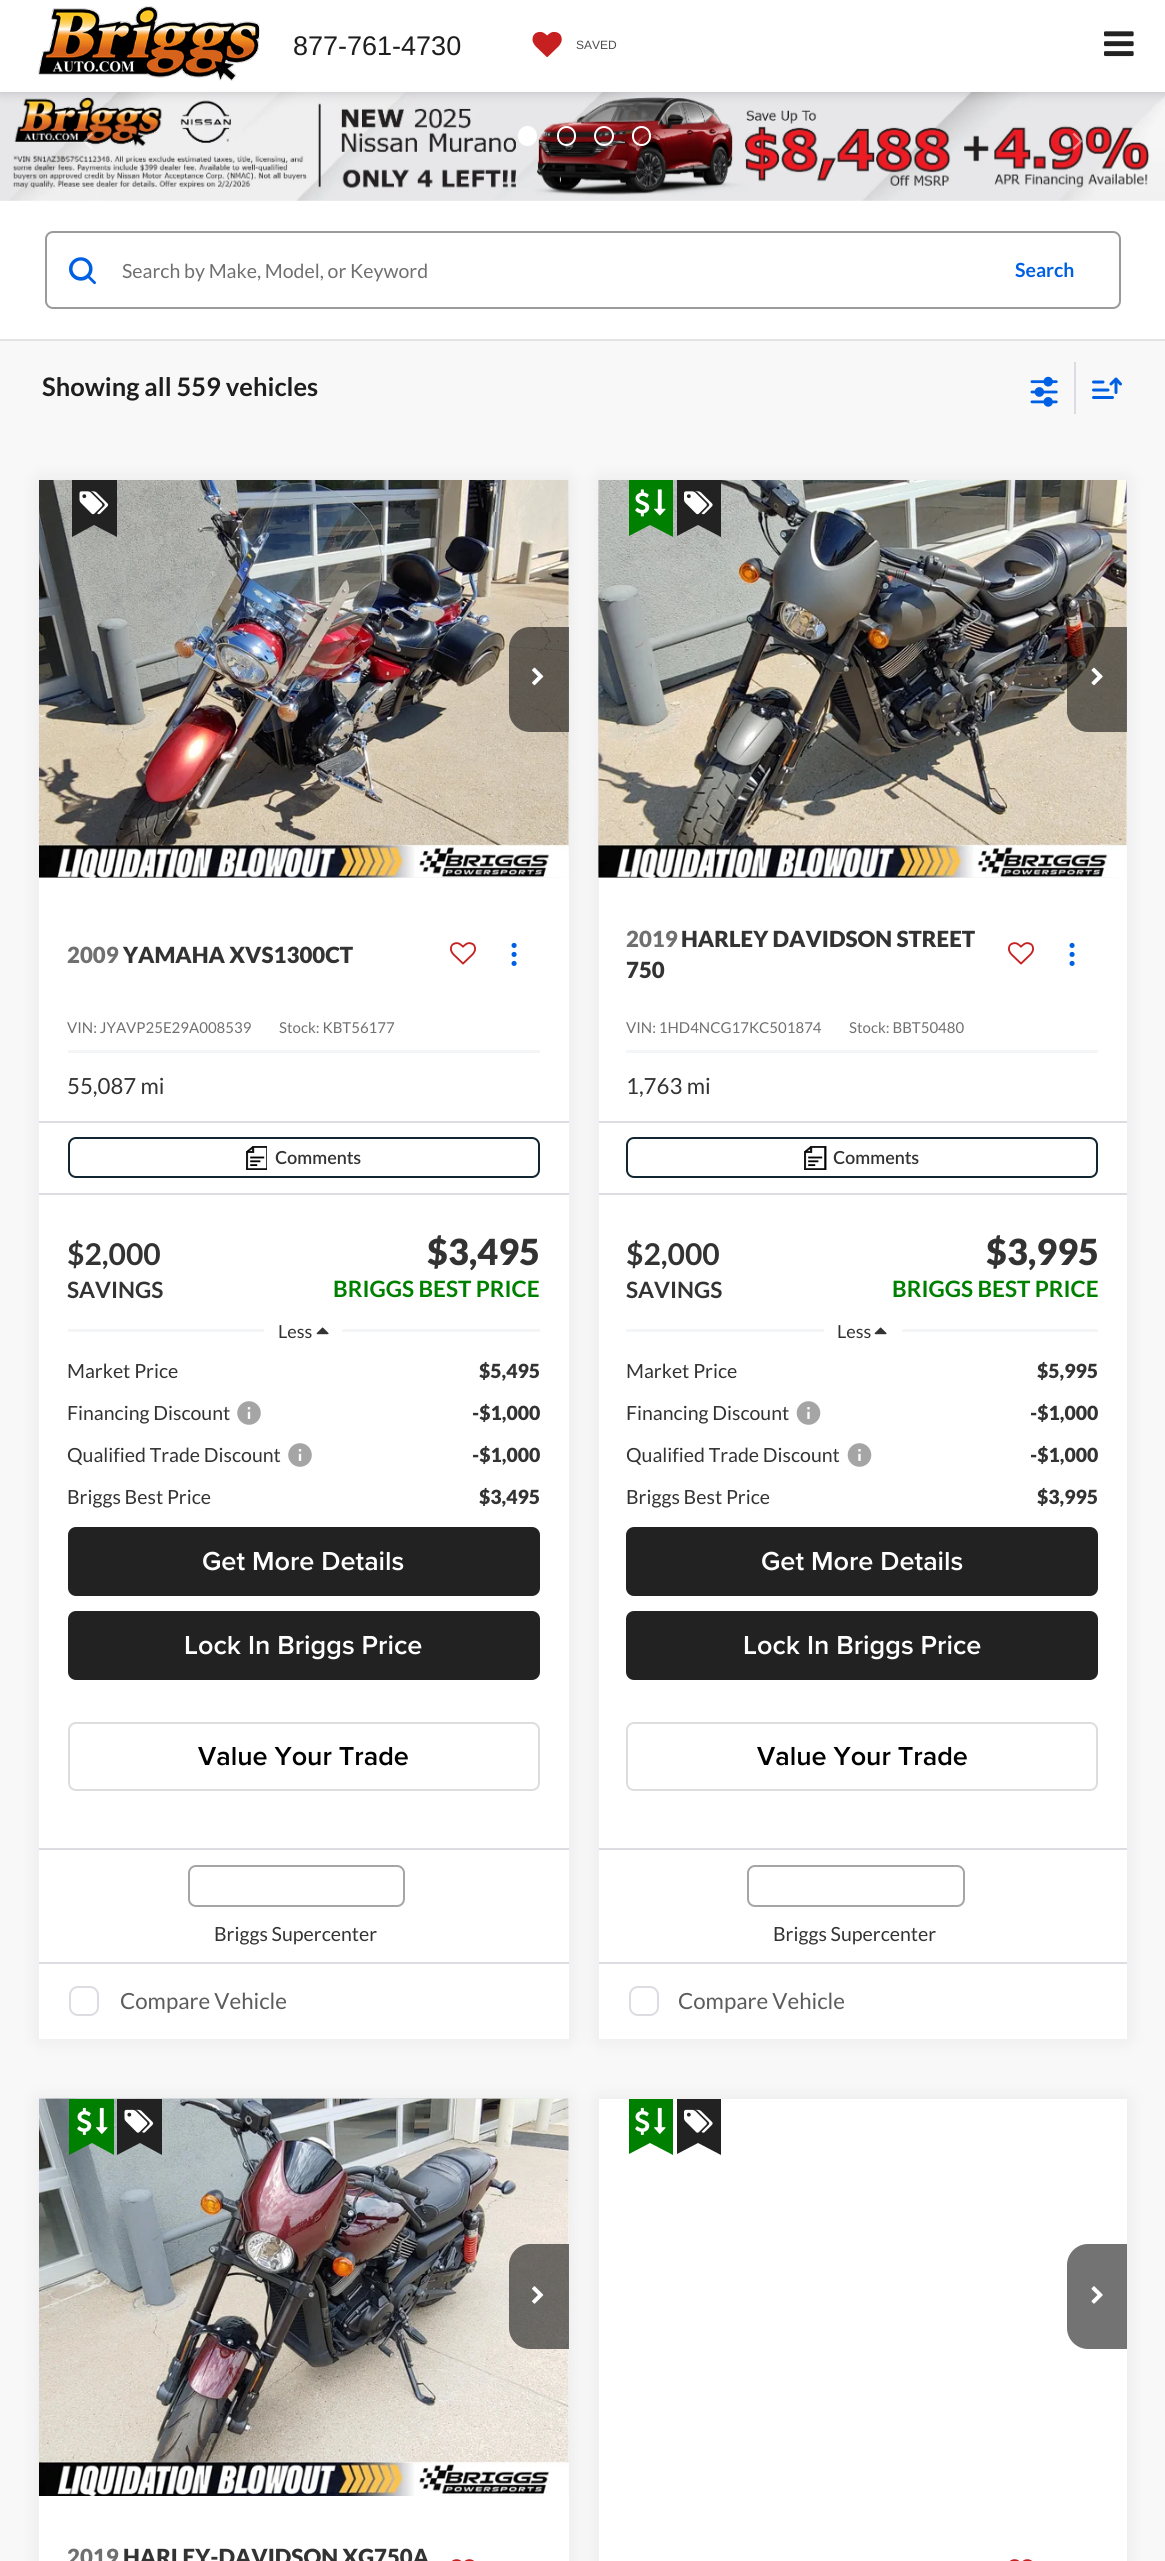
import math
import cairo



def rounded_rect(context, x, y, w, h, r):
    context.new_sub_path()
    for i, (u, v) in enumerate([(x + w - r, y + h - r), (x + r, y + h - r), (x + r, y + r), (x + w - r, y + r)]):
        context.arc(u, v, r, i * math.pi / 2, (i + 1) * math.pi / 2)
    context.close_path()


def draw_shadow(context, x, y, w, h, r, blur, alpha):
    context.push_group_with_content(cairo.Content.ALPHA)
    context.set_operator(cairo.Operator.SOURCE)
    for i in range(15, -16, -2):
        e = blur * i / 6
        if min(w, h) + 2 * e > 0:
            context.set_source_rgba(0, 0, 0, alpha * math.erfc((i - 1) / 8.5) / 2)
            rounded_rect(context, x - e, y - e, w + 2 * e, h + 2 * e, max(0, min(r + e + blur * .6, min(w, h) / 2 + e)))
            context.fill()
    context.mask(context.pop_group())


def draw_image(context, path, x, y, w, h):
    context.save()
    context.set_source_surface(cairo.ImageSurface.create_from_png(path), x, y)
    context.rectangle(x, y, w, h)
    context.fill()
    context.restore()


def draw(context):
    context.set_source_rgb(1, 1, 1)
    context.paint()
    draw_image(context, "images/4.png", 0, 92, 1165, 109)
    context.set_source_rgb(0, 0, 0)
    draw_shadow(context, 0, 0, 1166, 92, 0, 6, 0.2)
    context.set_source_rgb(1, 1, 1)
    context.rectangle(0, 0, 1165, 92)
    context.fill()
    draw_image(context, "images/1.png", 1104, 31, 30, 26)
    draw_image(context, "images/2.png", 38, 6, 222, 75)
    draw_image(context, "images/3.png", 532, 31, 30, 26)
    draw_image(context, "images/5.png", 83, 132, 10, 18)
    rounded_rect(context, 519, 127, 17, 18, 8.5)
    context.fill_preserve()
    context.stroke()
    rounded_rect(context, 558, 127, 17, 18, 8.5)
    context.stroke()
    context.arc(604, 136, 9, 0, 2 * math.pi)
    context.stroke()
    rounded_rect(context, 633, 127, 17, 18, 8.5)
    context.stroke()
    draw_image(context, "images/6.png", 1072, 133, 11, 17)
    context.set_source_rgb(248 / 255, 248 / 255, 248 / 255)
    context.rectangle(0, 341, 1165, 2220)
    context.fill()
    context.set_source_rgb(227 / 255, 227 / 255, 227 / 255)
    context.rectangle(0, 339, 1165, 2)
    context.fill()
    rounded_rect(context, 46, 232, 1074, 76, 7)
    context.set_source_rgb(155 / 255, 155 / 255, 155 / 255)
    context.stroke()
    draw_image(context, "images/7.png", 69, 257, 27, 28)
    draw_image(context, "images/8.png", 1030, 376, 28, 31)
    context.set_source_rgb(220 / 255, 220 / 255, 226 / 255)
    context.rectangle(1074, 362, 2, 52)
    context.fill()
    context.new_path()
    context.move_to(1093.5, 397.5)
    context.line_to(1112.5, 397.5)
    context.move_to(1093.5, 390)
    context.line_to(1108, 390)
    context.move_to(1093.5, 382)
    context.line_to(1103, 382)
    context.move_to(1116, 392.5)
    context.line_to(1116, 379)
    context.move_to(1116, 379)
    context.line_to(1120.5, 384)
    context.move_to(1116, 379)
    context.line_to(1111, 384)
    context.set_source_rgb(0, 96 / 255, 227 / 255)
    context.set_line_width(3)
    context.set_line_cap(cairo.LineCap.ROUND)
    context.set_line_join(cairo.LineJoin.ROUND)
    context.stroke()
    context.set_source_rgb(0, 0, 0)
    draw_shadow(context, 39, 480, 530, 1559, 0, 11, 0.07)
    context.set_source_rgb(1, 1, 1)
    context.rectangle(39, 480, 530, 1559)
    context.fill()
    draw_image(context, "images/9.png", 39, 480, 530, 398)
    context.set_source_rgb(220 / 255, 220 / 255, 226 / 255)
    context.rectangle(39, 1121, 530, 2)
    context.fill()
    context.rectangle(39, 1193, 530, 2)
    context.fill()
    context.rectangle(39, 1848, 530, 2)
    context.fill()
    context.rectangle(39, 1962, 530, 2)
    context.fill()
    context.set_source_rgb(0, 0, 0)
    draw_shadow(context, 599, 480, 528, 1559, 0, 11, 0.07)
    draw_image(context, "images/10.png", 39, 480, 530, 398)
    context.set_source_rgba(0, 0, 0, 0.55)
    context.new_path()
    context.move_to(530, 627)
    context.line_to(569, 627)
    context.line_to(569, 732)
    context.line_to(530, 732)
    context.curve_to(518.5, 732, 509, 722.5, 509, 711)
    context.line_to(509, 648)
    context.curve_to(509, 636.5, 518.5, 627, 530, 627)
    context.close_path()
    context.fill()
    draw_image(context, "images/11.png", 532, 667, 12, 19)
    context.set_source_rgb(34 / 255, 34 / 255, 34 / 255)
    context.new_path()
    context.move_to(72, 480)
    context.line_to(72, 537)
    context.line_to(94, 525)
    context.line_to(117, 537)
    context.line_to(117, 480)
    context.close_path()
    context.fill()
    draw_image(context, "images/12.png", 79, 491, 30, 24)
    draw_image(context, "images/13.png", 450, 942, 26, 23)
    draw_image(context, "images/14.png", 511, 942, 6, 6)
    draw_image(context, "images/14.png", 511, 951, 6, 6)
    draw_image(context, "images/14.png", 511, 960, 6, 6)
    context.set_source_rgb(244 / 255, 245 / 255, 247 / 255)
    context.rectangle(68, 1050, 472, 3)
    context.fill()
    rounded_rect(context, 69, 1138, 470, 39, 7)
    context.set_source_rgb(18 / 255, 37 / 255, 50 / 255)
    context.set_line_width(2)
    context.set_line_cap(cairo.LineCap.BUTT)
    context.set_line_join(cairo.LineJoin.MITER)
    context.stroke()
    draw_image(context, "images/15.png", 246, 1146, 21, 24)
    context.set_source_rgb(244 / 255, 245 / 255, 247 / 255)
    context.rectangle(68, 1329, 196, 3)
    context.fill()
    draw_image(context, "images/16.png", 316, 1327, 13, 8)
    context.rectangle(342, 1329, 198, 3)
    context.fill()
    draw_image(context, "images/17.png", 237, 1401, 24, 24)
    draw_image(context, "images/17.png", 288, 1443, 24, 24)
    context.set_source_rgb(34 / 255, 34 / 255, 34 / 255)
    rounded_rect(context, 69, 1528, 470, 67, 7)
    context.fill_preserve()
    context.stroke()
    rounded_rect(context, 69, 1612, 470, 67, 7)
    context.fill_preserve()
    context.stroke()
    rounded_rect(context, 69, 1723, 470, 67, 7)
    context.set_source_rgb(221 / 255, 221 / 255, 221 / 255)
    context.stroke()
    rounded_rect(context, 189, 1866, 215, 40, 7)
    context.set_source_rgb(165 / 255, 165 / 255, 165 / 255)
    context.stroke()
    rounded_rect(context, 70, 1987, 28, 28, 8)
    context.set_source_rgb(220 / 255, 220 / 255, 226 / 255)
    context.stroke()
    context.set_source_rgb(1, 1, 1)
    context.rectangle(599, 480, 528, 1559)
    context.fill()
    draw_image(context, "images/18.png", 598, 480, 529, 398)
    draw_image(context, "images/19.png", 598, 480, 529, 398)
    context.set_source_rgba(0, 0, 0, 0.55)
    context.new_path()
    context.move_to(1088, 627)
    context.line_to(1127, 627)
    context.line_to(1127, 732)
    context.line_to(1088, 732)
    context.curve_to(1076.5, 732, 1067, 722.5, 1067, 711)
    context.line_to(1067, 648)
    context.curve_to(1067, 636.5, 1076.5, 627, 1088, 627)
    context.close_path()
    context.fill()
    draw_image(context, "images/20.png", 1091, 667, 12, 19)
    context.set_source_rgb(0, 128 / 255, 0)
    context.new_path()
    context.move_to(629, 536)
    context.line_to(629, 480)
    context.line_to(673, 480)
    context.line_to(673, 537)
    context.line_to(650, 525)
    context.close_path()
    context.fill()
    draw_image(context, "images/21.png", 635, 489, 15, 28)
    draw_image(context, "images/22.png", 654, 489, 12, 27)
    context.set_source_rgb(34 / 255, 34 / 255, 34 / 255)
    context.new_path()
    context.move_to(677, 536)
    context.line_to(677, 480)
    context.line_to(721, 480)
    context.line_to(721, 537)
    context.line_to(698, 525)
    context.close_path()
    context.fill()
    draw_image(context, "images/23.png", 684, 491, 29, 24)
    draw_image(context, "images/13.png", 1008, 942, 26, 23)
    draw_image(context, "images/14.png", 1069, 942, 6, 6)
    draw_image(context, "images/14.png", 1069, 951, 6, 6)
    draw_image(context, "images/14.png", 1069, 960, 6, 6)
    context.set_source_rgb(244 / 255, 245 / 255, 247 / 255)
    context.rectangle(626, 1050, 472, 3)
    context.fill()
    context.set_source_rgb(220 / 255, 220 / 255, 226 / 255)
    context.rectangle(599, 1121, 528, 2)
    context.fill()
    rounded_rect(context, 627, 1138, 470, 39, 7)
    context.set_source_rgb(18 / 255, 37 / 255, 50 / 255)
    context.stroke()
    draw_image(context, "images/24.png", 804, 1146, 23, 24)
    context.set_source_rgb(220 / 255, 220 / 255, 226 / 255)
    context.rectangle(599, 1193, 528, 2)
    context.fill()
    context.set_source_rgb(244 / 255, 245 / 255, 247 / 255)
    context.rectangle(626, 1329, 198, 3)
    context.fill()
    draw_image(context, "images/16.png", 874, 1327, 13, 8)
    context.rectangle(902, 1329, 196, 3)
    context.fill()
    draw_image(context, "images/25.png", 796, 1401, 25, 24)
    draw_image(context, "images/25.png", 847, 1443, 25, 24)
    context.set_source_rgb(34 / 255, 34 / 255, 34 / 255)
    rounded_rect(context, 627, 1528, 470, 67, 7)
    context.fill_preserve()
    context.stroke()
    rounded_rect(context, 627, 1612, 470, 67, 7)
    context.fill_preserve()
    context.stroke()
    rounded_rect(context, 627, 1723, 470, 67, 7)
    context.set_source_rgb(221 / 255, 221 / 255, 221 / 255)
    context.stroke()
    context.set_source_rgb(220 / 255, 220 / 255, 226 / 255)
    context.rectangle(599, 1848, 528, 2)
    context.fill()
    rounded_rect(context, 748, 1866, 216, 40, 7)
    context.set_source_rgb(165 / 255, 165 / 255, 165 / 255)
    context.stroke()
    context.set_source_rgb(220 / 255, 220 / 255, 226 / 255)
    context.rectangle(599, 1962, 528, 2)
    context.fill()
    rounded_rect(context, 630, 1987, 28, 28, 8)
    context.stroke()
    context.set_source_rgb(0, 0, 0)
    draw_shadow(context, 39, 2099, 530, 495, 0, 11, 0.07)
    context.set_source_rgb(1, 1, 1)
    context.rectangle(39, 2099, 530, 462)
    context.fill()
    draw_image(context, "images/26.png", 39, 2098, 530, 398)
    context.set_source_rgb(0, 0, 0)
    draw_shadow(context, 599, 2099, 528, 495, 0, 11, 0.07)
    draw_image(context, "images/27.png", 39, 2098, 530, 398)
    context.set_source_rgba(0, 0, 0, 0.55)
    context.new_path()
    context.move_to(530, 2244)
    context.line_to(569, 2244)
    context.line_to(569, 2349)
    context.line_to(530, 2349)
    context.curve_to(518.5, 2349, 509, 2339.5, 509, 2328)
    context.line_to(509, 2265)
    context.curve_to(509, 2253.5, 518.5, 2244, 530, 2244)
    context.close_path()
    context.fill()
    draw_image(context, "images/28.png", 532, 2286, 12, 18)
    context.set_source_rgb(0, 128 / 255, 0)
    context.new_path()
    context.move_to(69, 2099)
    context.line_to(69, 2155)
    context.line_to(92, 2143)
    context.line_to(114, 2155)
    context.line_to(114, 2099)
    context.close_path()
    context.fill()
    draw_image(context, "images/29.png", 77, 2107, 15, 28)
    draw_image(context, "images/30.png", 96, 2107, 12, 27)
    context.set_source_rgb(34 / 255, 34 / 255, 34 / 255)
    context.new_path()
    context.move_to(117, 2099)
    context.line_to(117, 2155)
    context.line_to(140, 2143)
    context.line_to(162, 2155)
    context.line_to(162, 2099)
    context.close_path()
    context.fill()
    draw_image(context, "images/31.png", 124, 2109, 30, 24)
    draw_image(context, "images/32.png", 452, 2559, 22, 2)
    context.set_source_rgb(1, 1, 1)
    context.rectangle(599, 2099, 528, 462)
    context.fill()
    context.set_source_rgb(0, 128 / 255, 0)
    context.new_path()
    context.move_to(629, 2099)
    context.line_to(673, 2099)
    context.line_to(673, 2155)
    context.line_to(650, 2143)
    context.line_to(629, 2154)
    context.close_path()
    context.fill()
    draw_image(context, "images/29.png", 635, 2107, 15, 28)
    draw_image(context, "images/30.png", 654, 2107, 12, 27)
    context.set_source_rgb(34 / 255, 34 / 255, 34 / 255)
    context.new_path()
    context.move_to(677, 2099)
    context.line_to(721, 2099)
    context.line_to(721, 2155)
    context.line_to(698, 2143)
    context.line_to(677, 2154)
    context.close_path()
    context.fill()
    draw_image(context, "images/33.png", 684, 2109, 29, 24)
    context.set_source_rgb(115 / 255, 115 / 255, 115 / 255)
    context.new_path()
    context.move_to(1088, 2244)
    context.line_to(1127, 2244)
    context.line_to(1127, 2349)
    context.line_to(1088, 2349)
    context.curve_to(1076.5, 2349, 1067, 2339.5, 1067, 2328)
    context.line_to(1067, 2265)
    context.curve_to(1067, 2253.5, 1076.5, 2244, 1088, 2244)
    context.close_path()
    context.fill()
    draw_image(context, "images/34.png", 1091, 2286, 12, 18)
    draw_image(context, "images/32.png", 1010, 2559, 22, 2)
    context.select_font_face("Liberation Sans")
    context.set_font_size(27)
    context.set_source_rgb(30 / 255, 30 / 255, 30 / 255)
    context.move_to(293, 55)
    context.show_text("877-761-4730")
    context.set_font_size(12)
    context.set_source_rgb(77 / 255, 77 / 255, 77 / 255)
    context.move_to(576, 49)
    context.show_text("SAVED")
    context.select_font_face("Lato")
    context.set_font_size(19.5)
    context.set_source_rgb(112 / 255, 112 / 255, 112 / 255)
    context.move_to(122, 278)
    context.show_text("Search by Make, Model, or Keyword")
    context.select_font_face("Lato", cairo.FontSlant.NORMAL, cairo.FontWeight.BOLD)
    context.set_source_rgb(0, 96 / 255, 227 / 255)
    context.move_to(1015, 277)
    context.show_text("Search")
    context.set_font_size(25.5)
    context.set_source_rgb(30 / 255, 30 / 255, 30 / 255)
    context.move_to(42, 396)
    context.show_text("Showing all 559 vehicles")
    context.select_font_face("Lato Black")
    context.set_font_size(22.25)
    context.set_source_rgb(112 / 255, 112 / 255, 112 / 255)
    context.move_to(67, 963)
    context.show_text("2009")
    context.set_source_rgb(51 / 255, 51 / 255, 51 / 255)
    context.move_to(123, 963)
    context.show_text("YAMAHA XVS1300CT")
    context.select_font_face("Lato")
    context.set_font_size(15)
    context.set_source_rgb(112 / 255, 112 / 255, 112 / 255)
    context.move_to(67, 1033)
    context.show_text("VIN: JYAVP25E29A008539")
    context.move_to(279, 1033)
    context.show_text("Stock: KBT56177")
    context.set_font_size(22.25)
    context.set_source_rgb(51 / 255, 51 / 255, 51 / 255)
    context.move_to(67, 1094)
    context.show_text("55,087 mi")
    context.select_font_face("Lato SemiBold")
    context.set_font_size(18)
    context.move_to(275, 1164)
    context.show_text("Comments")
    context.select_font_face("Lato", cairo.FontSlant.NORMAL, cairo.FontWeight.BOLD)
    context.set_font_size(30)
    context.move_to(67, 1265)
    context.show_text("$2,000")
    context.set_font_size(22.5)
    context.move_to(67, 1298)
    context.show_text("SAVINGS")
    context.select_font_face("Lato Black")
    context.set_font_size(36)
    context.move_to(427, 1265)
    context.show_text("$3,495")
    context.select_font_face("Lato", cairo.FontSlant.NORMAL, cairo.FontWeight.BOLD)
    context.set_font_size(22.5)
    context.set_source_rgb(0, 128 / 255, 0)
    context.move_to(333, 1297)
    context.show_text("BRIGGS BEST PRICE")
    context.select_font_face("Lato")
    context.set_font_size(18)
    context.set_source_rgb(51 / 255, 51 / 255, 51 / 255)
    context.move_to(278, 1338)
    context.show_text("Less")
    context.set_font_size(19.5)
    context.move_to(67, 1378)
    context.show_text("Market Price")
    context.select_font_face("Lato Black")
    context.move_to(479, 1378)
    context.show_text("$5,495")
    context.select_font_face("Lato")
    context.move_to(67, 1420)
    context.show_text("Financing Discount")
    context.select_font_face("Lato Black")
    context.move_to(472, 1420)
    context.show_text("-$1,000")
    context.select_font_face("Lato")
    context.move_to(67, 1462)
    context.show_text("Qualified Trade Discount")
    context.select_font_face("Lato Black")
    context.move_to(472, 1462)
    context.show_text("-$1,000")
    context.select_font_face("Lato")
    context.move_to(67, 1504)
    context.show_text("Briggs Best Price")
    context.select_font_face("Lato Black")
    context.move_to(479, 1504)
    context.show_text("$3,495")
    context.select_font_face("Proxima Nova SemiBold")
    context.set_font_size(27)
    context.set_source_rgb(1, 1, 1)
    context.move_to(202, 1570)
    context.show_text("Get More Details")
    context.move_to(184, 1654)
    context.show_text("Lock In Briggs Price")
    context.set_source_rgb(0, 0, 0)
    context.move_to(198, 1765)
    context.show_text("Value Your Trade")
    context.select_font_face("Lato")
    context.set_font_size(19.5)
    context.set_source_rgb(51 / 255, 51 / 255, 51 / 255)
    context.move_to(214, 1941)
    context.show_text("Briggs Supercenter")
    context.set_font_size(22.25)
    context.set_source_rgb(92 / 255, 92 / 255, 92 / 255)
    context.move_to(120, 2009)
    context.show_text("Compare Vehicle")
    context.select_font_face("Lato Black")
    context.set_source_rgb(112 / 255, 112 / 255, 112 / 255)
    context.move_to(626, 947)
    context.show_text("2019")
    context.set_source_rgb(51 / 255, 51 / 255, 51 / 255)
    context.move_to(681, 947)
    context.show_text("HARLEY DAVIDSON STREET")
    context.move_to(626, 978)
    context.show_text("750")
    context.select_font_face("Lato")
    context.set_font_size(15)
    context.set_source_rgb(112 / 255, 112 / 255, 112 / 255)
    context.move_to(626, 1033)
    context.show_text("VIN: 1HD4NCG17KC501874")
    context.move_to(849, 1033)
    context.show_text("Stock: BBT50480")
    context.set_font_size(22.25)
    context.set_source_rgb(51 / 255, 51 / 255, 51 / 255)
    context.move_to(626, 1094)
    context.show_text("1,763 mi")
    context.select_font_face("Lato SemiBold")
    context.set_font_size(18)
    context.move_to(833, 1164)
    context.show_text("Comments")
    context.select_font_face("Lato", cairo.FontSlant.NORMAL, cairo.FontWeight.BOLD)
    context.set_font_size(30)
    context.move_to(626, 1265)
    context.show_text("$2,000")
    context.set_font_size(22.5)
    context.move_to(626, 1298)
    context.show_text("SAVINGS")
    context.select_font_face("Lato Black")
    context.set_font_size(36)
    context.move_to(986, 1265)
    context.show_text("$3,995")
    context.select_font_face("Lato", cairo.FontSlant.NORMAL, cairo.FontWeight.BOLD)
    context.set_font_size(22.5)
    context.set_source_rgb(0, 128 / 255, 0)
    context.move_to(892, 1297)
    context.show_text("BRIGGS BEST PRICE")
    context.select_font_face("Lato")
    context.set_font_size(18)
    context.set_source_rgb(51 / 255, 51 / 255, 51 / 255)
    context.move_to(837, 1338)
    context.show_text("Less")
    context.set_font_size(19.5)
    context.move_to(626, 1378)
    context.show_text("Market Price")
    context.select_font_face("Lato Black")
    context.move_to(1037, 1378)
    context.show_text("$5,995")
    context.select_font_face("Lato")
    context.move_to(626, 1420)
    context.show_text("Financing Discount")
    context.select_font_face("Lato Black")
    context.move_to(1030, 1420)
    context.show_text("-$1,000")
    context.select_font_face("Lato")
    context.move_to(626, 1462)
    context.show_text("Qualified Trade Discount")
    context.select_font_face("Lato Black")
    context.move_to(1030, 1462)
    context.show_text("-$1,000")
    context.select_font_face("Lato")
    context.move_to(626, 1504)
    context.show_text("Briggs Best Price")
    context.select_font_face("Lato Black")
    context.move_to(1037, 1504)
    context.show_text("$3,995")
    context.select_font_face("Proxima Nova SemiBold")
    context.set_font_size(27)
    context.set_source_rgb(1, 1, 1)
    context.move_to(761, 1570)
    context.show_text("Get More Details")
    context.move_to(743, 1654)
    context.show_text("Lock In Briggs Price")
    context.set_source_rgb(0, 0, 0)
    context.move_to(757, 1765)
    context.show_text("Value Your Trade")
    context.select_font_face("Lato")
    context.set_font_size(19.5)
    context.set_source_rgb(51 / 255, 51 / 255, 51 / 255)
    context.move_to(773, 1941)
    context.show_text("Briggs Supercenter")
    context.set_font_size(22.25)
    context.set_source_rgb(92 / 255, 92 / 255, 92 / 255)
    context.move_to(678, 2009)
    context.show_text("Compare Vehicle")
    context.select_font_face("Lato Black")
    context.set_source_rgb(112 / 255, 112 / 255, 112 / 255)
    context.move_to(67, 2565)
    context.show_text("2019")
    context.set_source_rgb(51 / 255, 51 / 255, 51 / 255)
    context.move_to(123, 2565)
    context.show_text("HARLEY-DAVIDSON XG750A")


surface = cairo.ImageSurface(cairo.Format.RGB24, 1165, 2561)
context = cairo.Context(surface)
options = cairo.FontOptions()
options.set_hint_metrics(cairo.HintMetrics.OFF)
options.set_hint_style(cairo.HintStyle.NONE)
context.set_font_options(options)
context.set_miter_limit(4)
draw(context)
surface.write_to_png("out.png")
